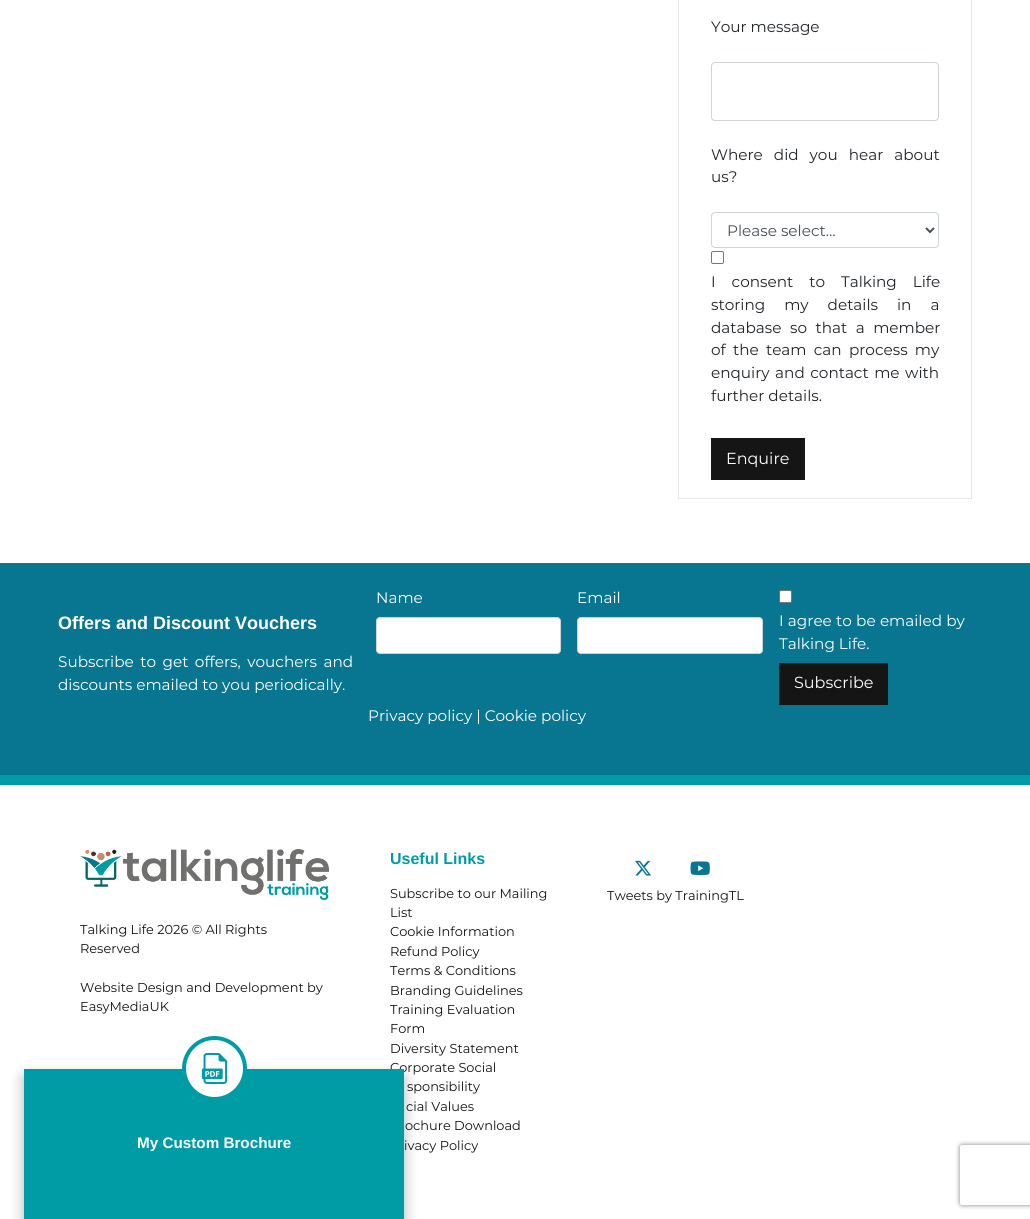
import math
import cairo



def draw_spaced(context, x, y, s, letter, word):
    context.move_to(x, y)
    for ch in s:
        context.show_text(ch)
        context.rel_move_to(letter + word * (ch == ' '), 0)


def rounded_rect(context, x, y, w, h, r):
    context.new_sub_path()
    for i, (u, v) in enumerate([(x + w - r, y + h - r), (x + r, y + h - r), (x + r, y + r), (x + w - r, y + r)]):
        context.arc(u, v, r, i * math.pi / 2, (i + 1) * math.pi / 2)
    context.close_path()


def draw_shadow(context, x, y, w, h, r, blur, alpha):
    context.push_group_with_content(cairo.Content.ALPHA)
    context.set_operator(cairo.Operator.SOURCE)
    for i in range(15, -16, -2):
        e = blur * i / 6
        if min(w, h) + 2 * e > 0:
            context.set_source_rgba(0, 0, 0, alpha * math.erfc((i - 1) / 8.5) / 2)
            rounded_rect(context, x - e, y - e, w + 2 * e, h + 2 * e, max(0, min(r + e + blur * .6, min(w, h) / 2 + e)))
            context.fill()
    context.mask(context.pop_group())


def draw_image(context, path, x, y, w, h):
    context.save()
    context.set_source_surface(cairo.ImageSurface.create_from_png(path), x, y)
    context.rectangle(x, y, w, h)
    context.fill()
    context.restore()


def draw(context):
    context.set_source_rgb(1, 1, 1)
    context.paint()
    context.rectangle(678.5, -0.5, 293, 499)
    context.set_source_rgb(230 / 255, 230 / 255, 230 / 255)
    context.set_line_width(1)
    context.stroke()
    rounded_rect(context, 711.5, 62.5, 227, 58, 3.5)
    context.set_source_rgb(206 / 255, 212 / 255, 218 / 255)
    context.stroke()
    rounded_rect(context, 711.5, 212.5, 227, 35, 3.5)
    context.stroke()
    context.new_path()
    context.move_to(926, 228)
    context.line_to(930, 232)
    context.line_to(934, 228)
    context.set_source_rgb(73 / 255, 80 / 255, 87 / 255)
    context.set_line_width(2)
    context.stroke()
    rounded_rect(context, 711.5, 251.5, 12, 12, 1.5)
    context.set_source_rgb(118 / 255, 118 / 255, 118 / 255)
    context.set_line_width(1)
    context.stroke()
    context.set_source_rgb(21 / 255, 21 / 255, 21 / 255)
    context.rectangle(711, 438, 94, 42)
    context.fill()
    context.set_source_rgb(8 / 255, 118 / 255, 145 / 255)
    context.rectangle(0, 563, 1030, 212)
    context.fill()
    context.set_source_rgb(1, 1, 1)
    rounded_rect(context, 376.5, 617.5, 184, 36, 3.5)
    context.fill_preserve()
    context.set_source_rgb(206 / 255, 212 / 255, 218 / 255)
    context.stroke()
    context.set_source_rgb(1, 1, 1)
    rounded_rect(context, 577.5, 617.5, 185, 36, 3.5)
    context.fill_preserve()
    context.set_source_rgb(206 / 255, 212 / 255, 218 / 255)
    context.stroke()
    context.set_source_rgb(1, 1, 1)
    rounded_rect(context, 779.5, 590.5, 12, 12, 1.5)
    context.fill_preserve()
    context.set_source_rgb(118 / 255, 118 / 255, 118 / 255)
    context.stroke()
    context.set_source_rgb(21 / 255, 21 / 255, 21 / 255)
    context.rectangle(779, 663, 109, 42)
    context.fill()
    context.set_source_rgb(0, 156 / 255, 165 / 255)
    context.rectangle(0, 775, 1030, 10)
    context.fill()
    draw_image(context, "images/1.png", 635, 860, 16, 16)
    draw_image(context, "images/2.png", 690, 861, 20, 14)
    draw_image(context, "images/3.png", 80, 849, 249, 51)
    context.set_source_rgb(0, 0, 0)
    draw_shadow(context, 24, 1077, 380, 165, 0, 7.5, 0.15)
    draw_shadow(context, 24, 1077, 380, 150, 0, 7.5, 0.15)
    context.save()
    context.set_fill_rule(cairo.FillRule.EVEN_ODD)
    context.new_path()
    context.move_to(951, 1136)
    context.line_to(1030, 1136)
    context.line_to(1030, 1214)
    context.line_to(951, 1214)
    context.close_path()
    context.move_to(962, 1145)
    context.line_to(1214, 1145)
    context.curve_to(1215, 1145, 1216, 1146, 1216, 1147)
    context.line_to(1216, 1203)
    context.curve_to(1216, 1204, 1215, 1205, 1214, 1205)
    context.line_to(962, 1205)
    context.curve_to(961, 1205, 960, 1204, 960, 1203)
    context.line_to(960, 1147)
    context.curve_to(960, 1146, 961, 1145, 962, 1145)
    context.close_path()
    context.clip()
    context.set_source_rgb(128 / 255, 128 / 255, 128 / 255)
    draw_shadow(context, 960, 1145, 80, 60, 2, 2.5, 1)
    context.restore()
    context.select_font_face("Montserrat")
    context.set_font_size(15.25)
    context.set_source_rgb(33 / 255, 37 / 255, 41 / 255)
    context.move_to(711, 32)
    context.show_text("Your message")
    draw_spaced(context, 711, 160, "Where did you hear about", 0, 7)
    context.move_to(711, 182)
    context.show_text("us?")
    context.set_source_rgb(73 / 255, 80 / 255, 87 / 255)
    context.move_to(727, 236)
    context.show_text("Please select…")
    context.set_source_rgb(33 / 255, 37 / 255, 41 / 255)
    draw_spaced(context, 711, 287, "I consent to Talking Life", 0, 12)
    draw_spaced(context, 711, 310, "storing my details in a", 0, 15)
    draw_spaced(context, 711, 333, "database so that a member", 0, 4.5)
    draw_spaced(context, 711, 355, "of the team can process my", 0, 3.25)
    draw_spaced(context, 711, 378, "enquiry and contact me with", 0, 1.5)
    context.move_to(711, 401)
    context.show_text("further details.")
    context.set_font_size(16)
    context.set_source_rgb(1, 1, 1)
    context.move_to(726, 464)
    context.show_text("Enquire")
    context.select_font_face("Liberation Sans", cairo.FontSlant.NORMAL, cairo.FontWeight.BOLD)
    context.set_font_size(18)
    context.move_to(58, 629)
    context.show_text("Offers and Discount Vouchers")
    context.select_font_face("Montserrat")
    context.set_font_size(15.25)
    draw_spaced(context, 58, 667, "Subscribe to get offers, vouchers and", 0, 2.5)
    context.move_to(58, 690)
    context.show_text("discounts emailed to you periodically.")
    context.move_to(376, 603)
    context.show_text("Name")
    context.move_to(577, 603)
    context.show_text("Email")
    draw_spaced(context, 779, 626, "I agree to be emailed by", 0, 0.25)
    context.move_to(779, 649)
    context.show_text("Talking Life.")
    context.set_font_size(16)
    context.move_to(794, 688)
    context.show_text("Subscribe")
    context.set_font_size(15.25)
    context.move_to(368, 721)
    context.show_text("Privacy policy | Cookie policy")
    context.select_font_face("Liberation Sans", cairo.FontSlant.NORMAL, cairo.FontWeight.BOLD)
    context.set_font_size(16)
    context.set_source_rgb(0, 156 / 255, 165 / 255)
    context.move_to(390, 864)
    context.show_text("Useful Links")
    context.select_font_face("Montserrat")
    context.set_font_size(12.9)
    context.set_source_rgb(17 / 255, 17 / 255, 17 / 255)
    context.move_to(390, 898)
    context.show_text("Subscribe to our Mailing")
    context.move_to(390, 917)
    context.show_text("List")
    context.move_to(390, 936)
    context.show_text("Cookie Information")
    context.move_to(390, 956)
    context.show_text("Refund Policy")
    context.move_to(390, 975)
    context.show_text("Terms & Conditions")
    context.move_to(390, 995)
    context.show_text("Branding Guidelines")
    context.move_to(390, 1014)
    context.show_text("Training Evaluation")
    context.move_to(390, 1033)
    context.show_text("Form")
    context.move_to(390, 1053)
    context.show_text("Diversity Statement")
    context.move_to(390, 1072)
    context.show_text("Corporate Social")
    context.move_to(407, 1091)
    context.show_text("sponsibility")
    context.move_to(406, 1111)
    context.show_text("cial Values")
    context.move_to(405, 1130)
    context.show_text("ochure Download")
    context.move_to(404, 1150)
    context.show_text("ivacy Policy")
    context.move_to(607, 900)
    context.show_text("Tweets by TrainingTL")
    context.move_to(80, 934)
    context.show_text("Talking Life 2026 © All Rights")
    context.move_to(80, 953)
    context.show_text("Reserved")
    context.move_to(80, 992)
    context.show_text("Website Design and Development by")
    context.move_to(80, 1011)
    context.show_text("EasyMediaUK")
    context.set_source_rgb(0, 156 / 255, 165 / 255)
    context.rectangle(24, 1069, 380, 150)
    context.fill()
    context.set_source_rgb(1, 1, 1)
    context.arc(214.5, 1068.5, 30.5, 0, 2 * math.pi)
    context.fill_preserve()
    context.set_source_rgb(0, 156 / 255, 165 / 255)
    context.set_line_width(4)
    context.stroke()
    draw_image(context, "images/4.png", 201, 1053, 27, 31)
    context.select_font_face("Liberation Sans", cairo.FontSlant.NORMAL, cairo.FontWeight.BOLD)
    context.set_font_size(15.25)
    context.set_source_rgb(1, 1, 1)
    context.move_to(137, 1148)
    context.show_text("My Custom Brochure")


surface = cairo.ImageSurface(cairo.Format.RGB24, 1030, 1219)
context = cairo.Context(surface)
options = cairo.FontOptions()
options.set_hint_metrics(cairo.HintMetrics.OFF)
options.set_hint_style(cairo.HintStyle.NONE)
context.set_font_options(options)
context.set_miter_limit(4)
draw(context)
surface.write_to_png("out.png")
